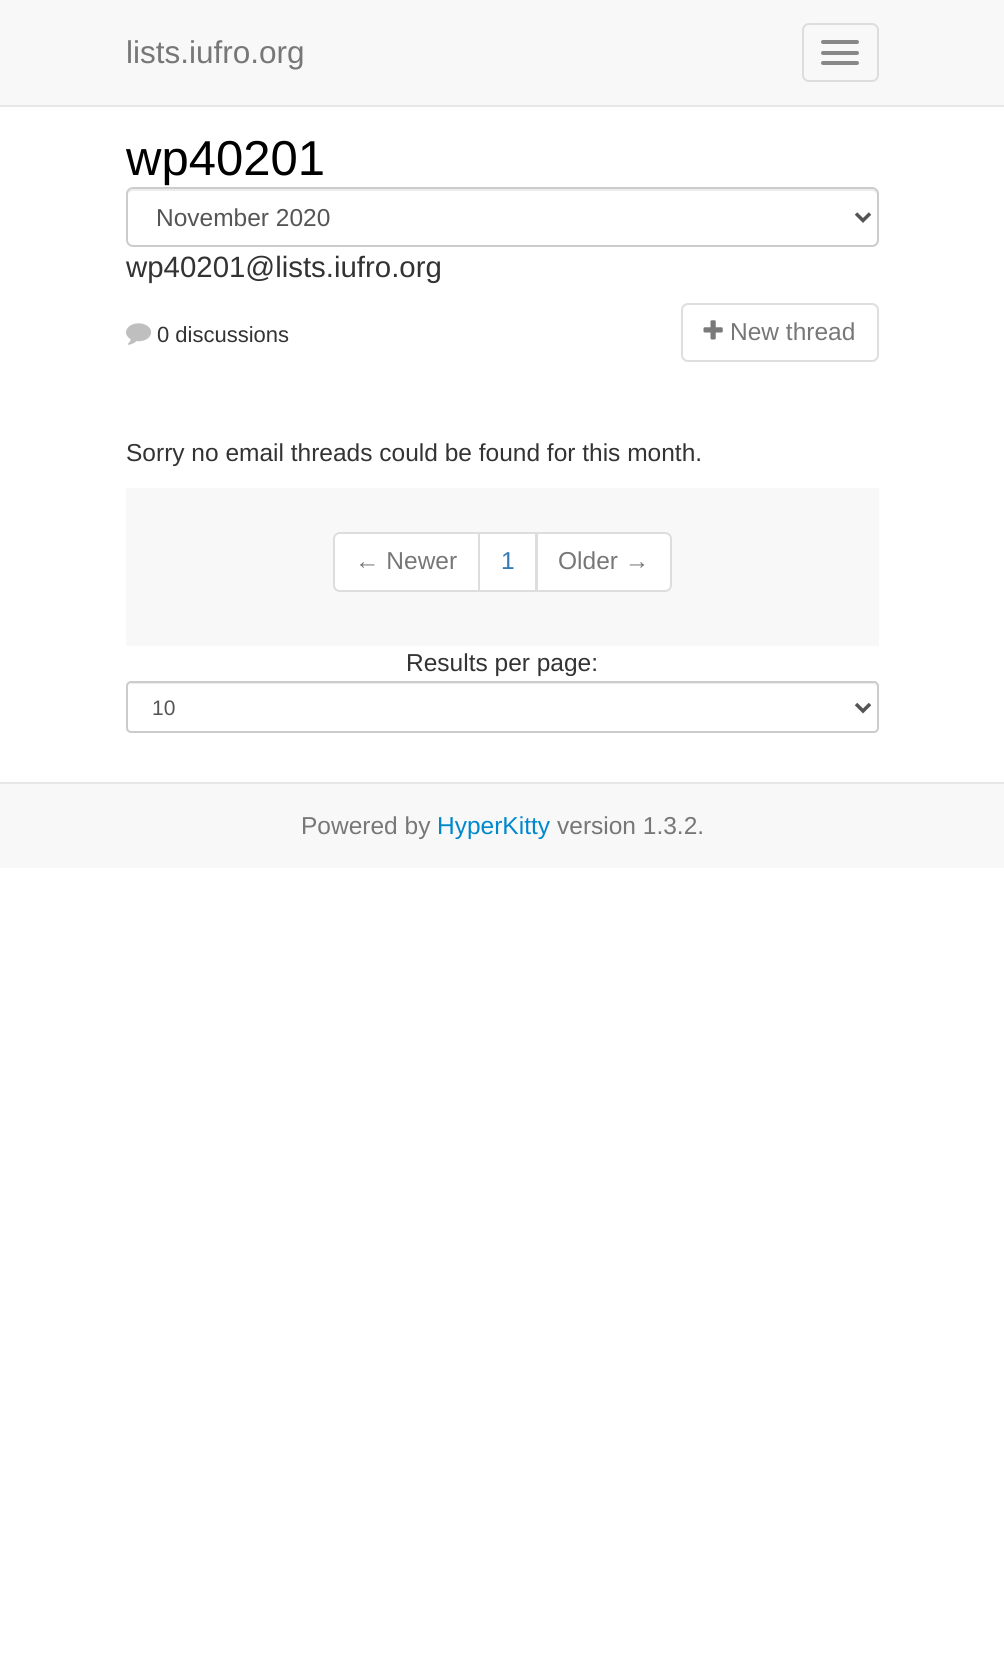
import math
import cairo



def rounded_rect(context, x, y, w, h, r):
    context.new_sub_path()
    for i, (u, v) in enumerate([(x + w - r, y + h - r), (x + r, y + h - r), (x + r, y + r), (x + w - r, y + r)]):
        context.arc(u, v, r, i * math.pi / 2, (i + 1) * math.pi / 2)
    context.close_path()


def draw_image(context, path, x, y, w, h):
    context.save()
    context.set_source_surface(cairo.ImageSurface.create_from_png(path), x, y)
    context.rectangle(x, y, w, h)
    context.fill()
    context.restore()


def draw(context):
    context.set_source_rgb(1, 1, 1)
    context.paint()
    context.set_source_rgb(248 / 255, 248 / 255, 248 / 255)
    context.rectangle(0, 0, 1004, 105)
    context.fill()
    context.set_source_rgb(231 / 255, 231 / 255, 231 / 255)
    context.rectangle(0, 105, 1004, 2)
    context.fill()
    rounded_rect(context, 803, 24, 75, 57, 6)
    context.set_source_rgb(221 / 255, 221 / 255, 221 / 255)
    context.stroke()
    context.set_source_rgb(136 / 255, 136 / 255, 136 / 255)
    rounded_rect(context, 821, 40, 38, 4, 2)
    context.fill()
    rounded_rect(context, 821, 51, 38, 4, 2)
    context.fill()
    rounded_rect(context, 821, 61, 38, 4, 2)
    context.fill()
    context.set_source_rgb(236 / 255, 236 / 255, 236 / 255)
    context.new_path()
    context.move_to(133, 191)
    context.line_to(872, 191)
    context.curve_to(874, 191, 877, 193, 877, 196)
    context.curve_to(877, 193, 876, 189, 872, 189)
    context.line_to(133, 189)
    context.curve_to(129, 189, 128, 193, 128, 196)
    context.curve_to(128, 193, 130, 191, 133, 191)
    context.close_path()
    context.fill()
    rounded_rect(context, 127, 188, 751, 58, 6)
    context.set_source_rgb(204 / 255, 204 / 255, 204 / 255)
    context.stroke()
    context.new_path()
    context.move_to(856, 213.5)
    context.line_to(863, 220.5)
    context.line_to(870, 213.5)
    context.set_source_rgb(85 / 255, 85 / 255, 85 / 255)
    context.set_line_width(3.5)
    context.stroke()
    draw_image(context, "images/1.png", 126, 323, 26, 22)
    rounded_rect(context, 682, 304, 196, 57, 6)
    context.set_source_rgb(222 / 255, 222 / 255, 222 / 255)
    context.set_line_width(2)
    context.stroke()
    draw_image(context, "images/2.png", 703, 320, 20, 20)
    context.set_source_rgb(248 / 255, 248 / 255, 248 / 255)
    context.rectangle(126, 488, 753, 158)
    context.fill()
    context.set_source_rgb(1, 1, 1)
    context.new_path()
    context.move_to(340, 533)
    context.line_to(479, 533)
    context.line_to(479, 591)
    context.line_to(340, 591)
    context.curve_to(336.5, 591, 334, 588.5, 334, 585)
    context.line_to(334, 539)
    context.curve_to(334, 535.5, 336.5, 533, 340, 533)
    context.close_path()
    context.fill_preserve()
    context.set_source_rgb(221 / 255, 221 / 255, 221 / 255)
    context.stroke()
    context.set_source_rgb(1, 1, 1)
    context.rectangle(479, 533, 57, 58)
    context.fill_preserve()
    context.set_source_rgb(221 / 255, 221 / 255, 221 / 255)
    context.stroke()
    context.set_source_rgb(1, 1, 1)
    context.new_path()
    context.move_to(537, 533)
    context.line_to(665, 533)
    context.curve_to(668.5, 533, 671, 535.5, 671, 539)
    context.line_to(671, 585)
    context.curve_to(671, 588.5, 668.5, 591, 665, 591)
    context.line_to(537, 591)
    context.close_path()
    context.fill_preserve()
    context.set_source_rgb(221 / 255, 221 / 255, 221 / 255)
    context.stroke()
    context.set_source_rgb(236 / 255, 236 / 255, 236 / 255)
    context.new_path()
    context.move_to(131, 684)
    context.line_to(873, 684)
    context.curve_to(875, 684, 877, 686, 877, 688)
    context.curve_to(877, 685, 876, 683, 873, 683)
    context.line_to(132, 683)
    context.curve_to(129, 683, 128, 685, 128, 688)
    context.curve_to(128, 686, 129, 684, 131, 684)
    context.close_path()
    context.fill()
    rounded_rect(context, 127, 682, 751, 50, 4)
    context.set_source_rgb(204 / 255, 204 / 255, 204 / 255)
    context.stroke()
    context.new_path()
    context.move_to(856, 704)
    context.line_to(863, 711)
    context.line_to(870, 704)
    context.set_source_rgb(85 / 255, 85 / 255, 85 / 255)
    context.set_line_width(3.5)
    context.stroke()
    context.set_source_rgb(248 / 255, 248 / 255, 248 / 255)
    context.rectangle(0, 784, 1004, 84)
    context.fill()
    context.set_source_rgb(231 / 255, 231 / 255, 231 / 255)
    context.rectangle(0, 782, 1004, 2)
    context.fill()
    context.select_font_face("Liberation Sans")
    context.set_font_size(31.5)
    context.set_source_rgb(119 / 255, 119 / 255, 119 / 255)
    context.move_to(126, 63)
    context.show_text("lists.iufro.org")
    context.set_font_size(49)
    context.set_source_rgb(0, 0, 0)
    context.move_to(126, 175)
    context.show_text("wp40201")
    context.set_font_size(24.5)
    context.set_source_rgb(85 / 255, 85 / 255, 85 / 255)
    context.move_to(156, 226)
    context.show_text("November 2020")
    context.set_font_size(29.4)
    context.set_source_rgb(51 / 255, 51 / 255, 51 / 255)
    context.move_to(126, 277)
    context.show_text("wp40201@lists.iufro.org")
    context.set_font_size(22)
    context.move_to(157, 342)
    context.show_text("0 discussions")
    context.set_font_size(24.5)
    context.set_source_rgb(119 / 255, 119 / 255, 119 / 255)
    context.move_to(730, 340)
    context.show_text("New thread")
    context.set_source_rgb(51 / 255, 51 / 255, 51 / 255)
    context.move_to(126, 461)
    context.show_text("Sorry no email threads could be found for this month.")
    context.set_source_rgb(119 / 255, 119 / 255, 119 / 255)
    context.move_to(355, 569)
    context.show_text("← Newer")
    context.set_source_rgb(51 / 255, 122 / 255, 183 / 255)
    context.move_to(501, 569)
    context.show_text("1")
    context.set_source_rgb(119 / 255, 119 / 255, 119 / 255)
    context.move_to(558, 569)
    context.show_text("Older →")
    context.set_source_rgb(51 / 255, 51 / 255, 51 / 255)
    context.move_to(406, 671)
    context.show_text("Results per page:")
    context.set_font_size(21)
    context.set_source_rgb(85 / 255, 85 / 255, 85 / 255)
    context.move_to(152, 715)
    context.show_text("10")
    context.set_font_size(24.5)
    context.set_source_rgb(119 / 255, 119 / 255, 119 / 255)
    context.move_to(301, 834)
    context.show_text("Powered by")
    context.set_source_rgb(0, 136 / 255, 204 / 255)
    context.move_to(437, 834)
    context.show_text("HyperKitty")
    context.set_source_rgb(119 / 255, 119 / 255, 119 / 255)
    context.move_to(557, 834)
    context.show_text("version 1.3.2.")


surface = cairo.ImageSurface(cairo.Format.RGB24, 1004, 1657)
context = cairo.Context(surface)
options = cairo.FontOptions()
options.set_hint_metrics(cairo.HintMetrics.OFF)
options.set_hint_style(cairo.HintStyle.NONE)
context.set_font_options(options)
context.set_miter_limit(4)
draw(context)
surface.write_to_png("out.png")
